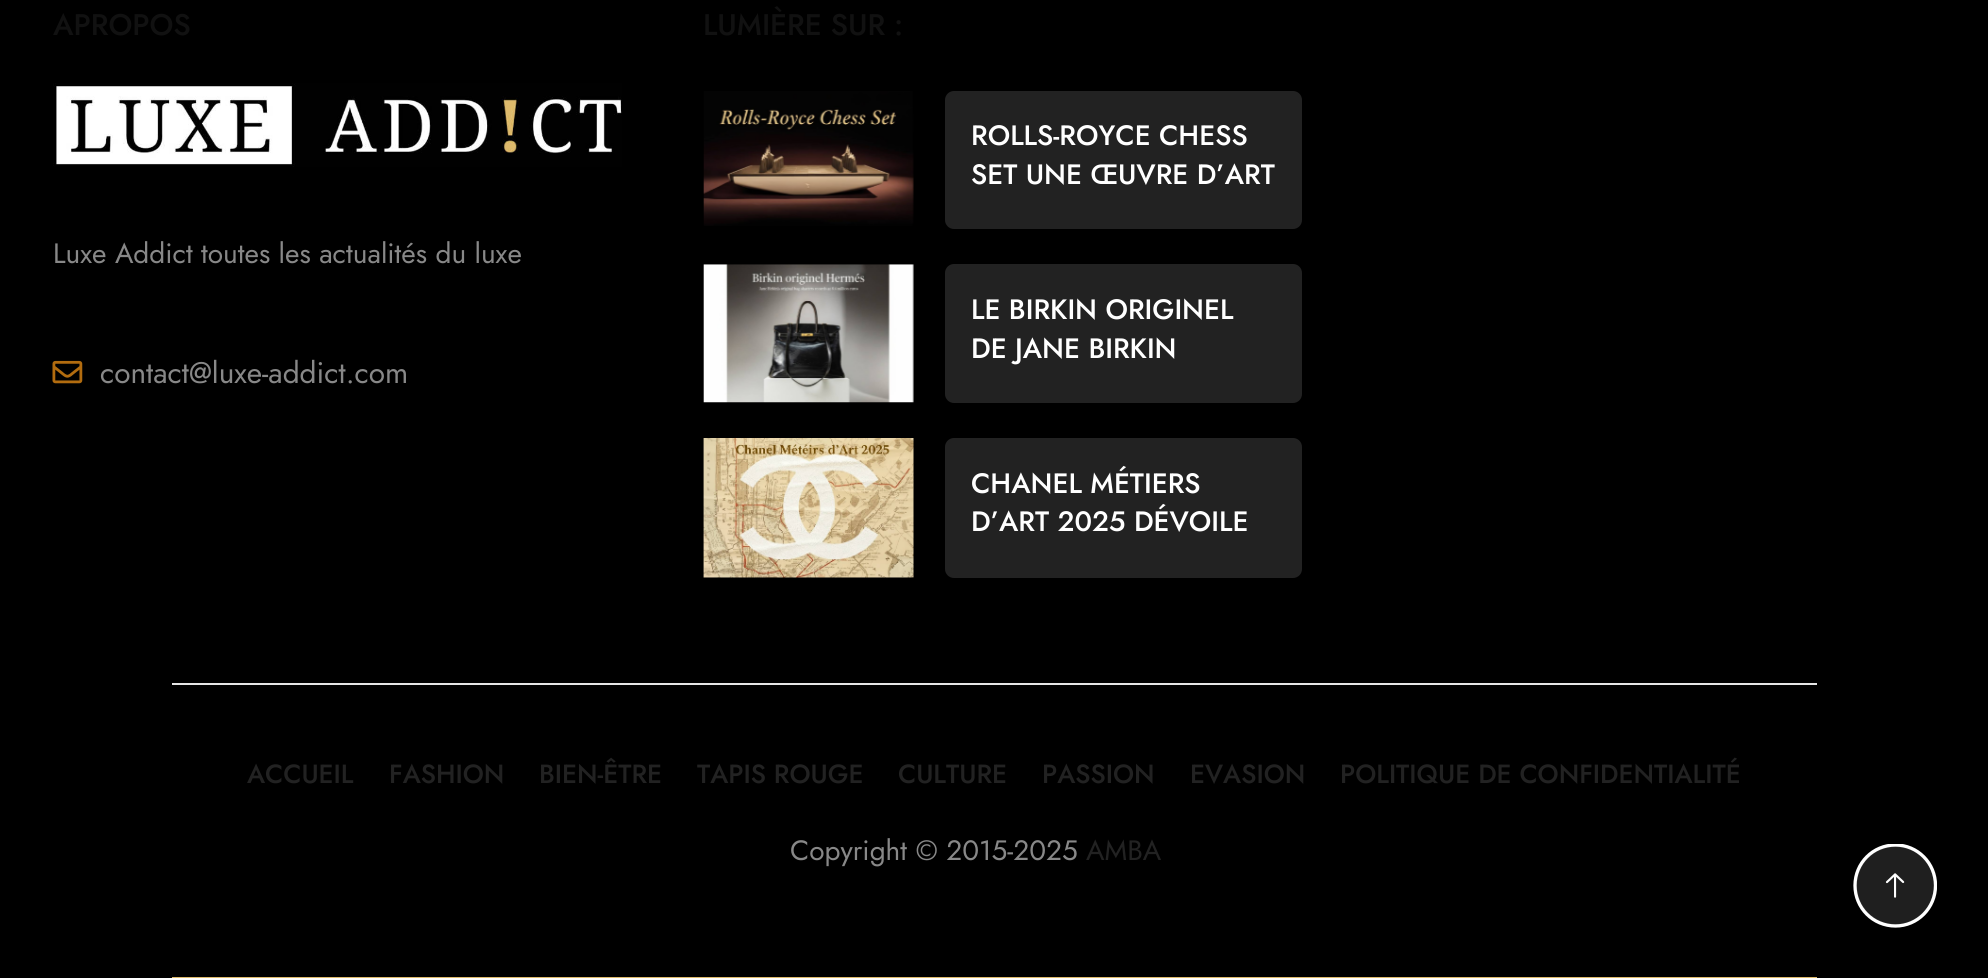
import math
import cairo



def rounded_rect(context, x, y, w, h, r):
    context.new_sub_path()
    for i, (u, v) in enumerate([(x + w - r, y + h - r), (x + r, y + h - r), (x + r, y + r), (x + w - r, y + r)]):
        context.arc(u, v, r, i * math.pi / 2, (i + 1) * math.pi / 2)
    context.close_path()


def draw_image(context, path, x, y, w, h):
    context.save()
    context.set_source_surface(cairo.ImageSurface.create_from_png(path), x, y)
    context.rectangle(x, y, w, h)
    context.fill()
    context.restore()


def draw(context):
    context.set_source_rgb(0, 0, 0)
    context.paint()
    draw_image(context, "images/1.png", 53, 83, 569, 84)
    draw_image(context, "images/2.png", 52, 360, 31, 24)
    draw_image(context, "images/3.png", 703, 91, 211, 135)
    context.set_source_rgb(34 / 255, 34 / 255, 34 / 255)
    rounded_rect(context, 945, 91, 357, 138, 9)
    context.fill()
    draw_image(context, "images/4.png", 703, 264, 211, 139)
    rounded_rect(context, 945, 264, 357, 139, 9)
    context.fill()
    draw_image(context, "images/5.png", 703, 438, 211, 140)
    rounded_rect(context, 945, 438, 357, 140, 9)
    context.fill()
    context.set_source_rgb(230 / 255, 230 / 255, 230 / 255)
    context.rectangle(172, 683, 1645, 2)
    context.fill()
    context.set_source_rgb(221 / 255, 186 / 255, 107 / 255)
    context.rectangle(172, 977, 1645, 1)
    context.fill()
    context.set_source_rgb(31 / 255, 31 / 255, 31 / 255)
    context.arc(1895.5, 885.5, 39.5, 0, 2 * math.pi)
    context.fill_preserve()
    context.set_source_rgb(47 / 255, 47 / 255, 47 / 255)
    context.stroke()
    context.save()
    context.rectangle(1853, 844, 84, 84)
    context.clip()
    context.new_path()
    context.move_to(1895.5, 845)
    context.curve_to(1917.5, 845, 1935.5, 863, 1935.5, 885.5)
    context.curve_to(1935.5, 908, 1917.5, 926, 1895.5, 926)
    context.curve_to(1873, 926, 1855, 908, 1855, 885.5)
    context.curve_to(1855, 863, 1873, 845, 1895.5, 845)
    context.set_source_rgb(1, 1, 1)
    context.set_line_width(3.3)
    context.stroke()
    context.restore()
    draw_image(context, "images/6.png", 1885, 873, 20, 25)
    context.select_font_face("Jost Medium")
    context.set_font_size(29.75)
    context.set_source_rgb(17 / 255, 17 / 255, 17 / 255)
    context.move_to(53, 35)
    context.show_text("APROPOS")
    context.select_font_face("Jost")
    context.set_font_size(28)
    context.set_source_rgb(136 / 255, 136 / 255, 136 / 255)
    context.move_to(53, 263)
    context.show_text("Luxe Addict toutes les actualités du luxe")
    context.set_font_size(29.75)
    context.move_to(100, 383)
    context.show_text("contact@luxe-addict.com")
    context.select_font_face("Jost Medium")
    context.set_source_rgb(17 / 255, 17 / 255, 17 / 255)
    context.move_to(703, 35)
    context.show_text("LUMIÈRE SUR :")
    context.set_font_size(28)
    context.set_source_rgb(1, 1, 1)
    context.move_to(971, 145)
    context.show_text("ROLLS-ROYCE CHESS")
    context.move_to(971, 184)
    context.show_text("SET UNE ŒUVRE D’ART")
    context.move_to(971, 319)
    context.show_text("LE BIRKIN ORIGINEL")
    context.move_to(971, 358)
    context.show_text("DE JANE BIRKIN")
    context.move_to(971, 493)
    context.show_text("CHANEL MÉTIERS")
    context.move_to(971, 531)
    context.show_text("D’ART 2025 DÉVOILE")
    context.set_font_size(26.25)
    context.set_source_rgb(34 / 255, 34 / 255, 34 / 255)
    context.move_to(247, 783)
    context.show_text("ACCUEIL")
    context.move_to(389, 783)
    context.show_text("FASHION")
    context.move_to(539, 783)
    context.show_text("BIEN-ÊTRE")
    context.move_to(697, 783)
    context.show_text("TAPIS ROUGE")
    context.move_to(898, 783)
    context.show_text("CULTURE")
    context.move_to(1042, 783)
    context.show_text("PASSION")
    context.move_to(1190, 783)
    context.show_text("EVASION")
    context.move_to(1340, 783)
    context.show_text("POLITIQUE DE CONFIDENTIALITÉ")
    context.select_font_face("Jost")
    context.set_font_size(28)
    context.set_source_rgb(136 / 255, 136 / 255, 136 / 255)
    context.move_to(790, 860)
    context.show_text("Copyright © 2015-2025")
    context.set_source_rgb(34 / 255, 34 / 255, 34 / 255)
    context.move_to(1086, 860)
    context.show_text("AMBA")


surface = cairo.ImageSurface(cairo.Format.RGB24, 1988, 978)
context = cairo.Context(surface)
options = cairo.FontOptions()
options.set_hint_metrics(cairo.HintMetrics.OFF)
options.set_hint_style(cairo.HintStyle.NONE)
context.set_font_options(options)
context.set_miter_limit(4)
draw(context)
surface.write_to_png("out.png")
